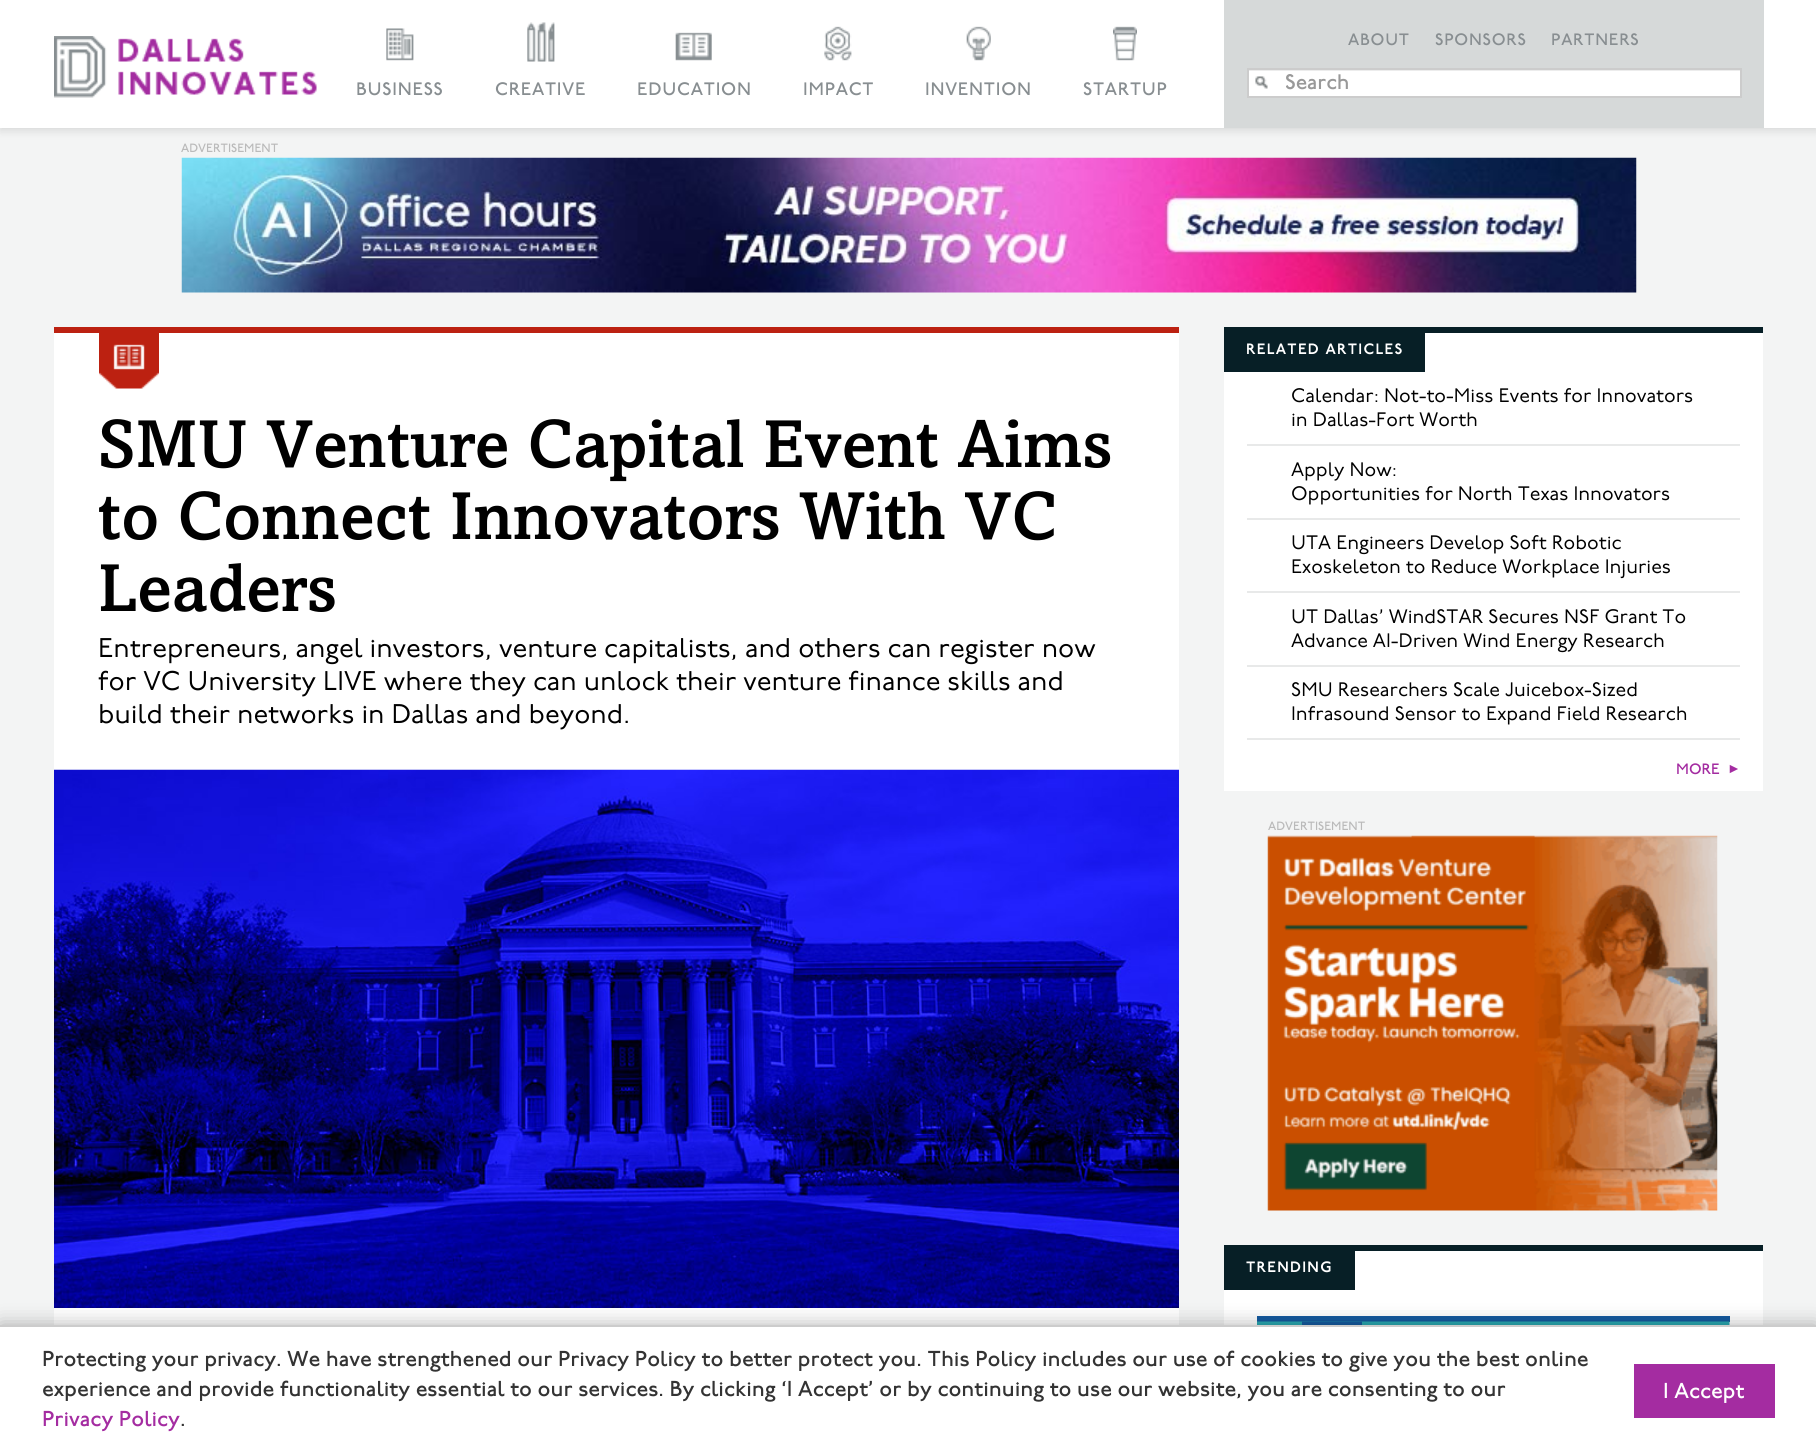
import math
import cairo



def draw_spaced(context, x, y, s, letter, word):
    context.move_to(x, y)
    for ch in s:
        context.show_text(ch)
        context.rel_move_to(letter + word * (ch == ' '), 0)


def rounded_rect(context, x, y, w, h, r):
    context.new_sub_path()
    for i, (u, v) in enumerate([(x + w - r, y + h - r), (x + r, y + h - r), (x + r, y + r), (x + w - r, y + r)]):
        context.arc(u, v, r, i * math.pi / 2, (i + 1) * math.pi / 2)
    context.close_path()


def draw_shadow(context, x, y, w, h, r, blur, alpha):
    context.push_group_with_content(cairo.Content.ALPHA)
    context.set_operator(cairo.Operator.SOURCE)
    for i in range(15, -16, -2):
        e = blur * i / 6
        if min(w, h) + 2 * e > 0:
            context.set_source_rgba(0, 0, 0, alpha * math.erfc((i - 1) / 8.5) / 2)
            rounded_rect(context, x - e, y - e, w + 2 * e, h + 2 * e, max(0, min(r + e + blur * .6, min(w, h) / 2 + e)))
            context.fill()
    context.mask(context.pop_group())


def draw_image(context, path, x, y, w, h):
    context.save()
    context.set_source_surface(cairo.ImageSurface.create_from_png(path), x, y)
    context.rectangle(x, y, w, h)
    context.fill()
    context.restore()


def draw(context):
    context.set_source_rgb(243 / 255, 244 / 255, 244 / 255)
    context.paint()
    context.set_source_rgb(0, 0, 0)
    draw_shadow(context, 0, 3, 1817, 128, 0, 4, 0.11)
    context.set_source_rgb(1, 1, 1)
    context.rectangle(0, 0, 1816, 128)
    context.fill()
    draw_image(context, "images/1.png", 54, 36, 263, 62)
    draw_image(context, "images/2.png", 386, 28, 28, 33)
    draw_image(context, "images/3.png", 527, 22, 28, 40)
    draw_image(context, "images/4.png", 675, 32, 37, 29)
    draw_image(context, "images/5.png", 824, 26, 28, 35)
    draw_image(context, "images/6.png", 966, 26, 25, 35)
    draw_image(context, "images/7.png", 1113, 26, 24, 35)
    context.set_source_rgb(214 / 255, 217 / 255, 217 / 255)
    context.rectangle(1224, 0, 540, 128)
    context.fill()
    context.set_source_rgb(1, 1, 1)
    context.rectangle(1249, 71, 491, 25)
    context.fill()
    draw_image(context, "images/8.png", 1255, 76, 13, 13)
    context.set_source_rgb(236 / 255, 236 / 255, 236 / 255)
    context.rectangle(1248, 70, 492, 1)
    context.fill()
    context.rectangle(1248, 69, 493, 28)
    context.set_source_rgb(204 / 255, 204 / 255, 204 / 255)
    context.stroke()
    draw_image(context, "images/9.png", 181, 157, 1456, 136)
    context.set_source_rgb(1, 1, 1)
    context.rectangle(54, 333, 1125, 992)
    context.fill()
    context.set_source_rgb(188 / 255, 33 / 255, 17 / 255)
    context.rectangle(54, 327, 1125, 6)
    context.fill()
    draw_image(context, "images/10.png", 99, 333, 60, 56)
    draw_image(context, "images/11.png", 54, 769, 1125, 539)
    context.set_source_rgb(1, 1, 1)
    context.rectangle(1224, 333, 539, 458)
    context.fill()
    context.set_source_rgb(7 / 255, 31 / 255, 38 / 255)
    context.rectangle(1425, 327, 338, 6)
    context.fill()
    context.rectangle(1224, 327, 201, 45)
    context.fill()
    context.set_source_rgb(232 / 255, 233 / 255, 233 / 255)
    context.rectangle(1247, 444, 493, 2)
    context.fill()
    context.rectangle(1247, 518, 493, 2)
    context.fill()
    context.rectangle(1247, 591, 493, 2)
    context.fill()
    context.rectangle(1247, 665, 493, 2)
    context.fill()
    context.rectangle(1247, 738, 493, 2)
    context.fill()
    draw_image(context, "images/12.png", 1267, 835, 451, 376)
    context.set_source_rgb(1, 1, 1)
    context.rectangle(1224, 1251, 539, 74)
    context.fill()
    context.set_source_rgb(7 / 255, 31 / 255, 38 / 255)
    context.rectangle(1355, 1245, 408, 6)
    context.fill()
    context.rectangle(1224, 1245, 131, 45)
    context.fill()
    context.set_source_rgb(21 / 255, 91 / 255, 160 / 255)
    context.rectangle(1257, 1316, 473, 6)
    context.fill()
    draw_image(context, "images/13.png", 1257, 1321, 473, 4)
    draw_image(context, "images/14.png", 1302, 1321, 60, 4)
    context.set_source_rgb(0, 0, 0)
    draw_shadow(context, 0, 1325, 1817, 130, 0, 10, 0.3)
    context.set_source_rgb(1, 1, 1)
    context.rectangle(0, 1327, 1816, 127)
    context.fill()
    context.set_source_rgb(204 / 255, 204 / 255, 204 / 255)
    context.rectangle(0, 1325, 1816, 2)
    context.fill()
    context.set_source_rgb(164 / 255, 44 / 255, 161 / 255)
    context.rectangle(1634, 1364, 141, 54)
    context.fill()
    context.select_font_face("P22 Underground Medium")
    context.set_font_size(18)
    context.set_source_rgb(136 / 255, 142 / 255, 145 / 255)
    draw_spaced(context, 356, 95, "BUSINESS", 0.75, 0)
    draw_spaced(context, 495, 95, "CREATIVE", 0.75, 0)
    draw_spaced(context, 637, 95, "EDUCATION", 0.75, 0)
    draw_spaced(context, 803, 95, "IMPACT", 0.75, 0)
    draw_spaced(context, 925, 95, "INVENTION", 0.75, 0)
    draw_spaced(context, 1083, 95, "STARTUP", 0.75, 0)
    context.set_font_size(16.5)
    draw_spaced(context, 1348, 45, "ABOUT", 0.75, 0)
    draw_spaced(context, 1435, 45, "SPONSORS", 0.75, 0)
    draw_spaced(context, 1551, 45, "PARTNERS", 0.75, 0)
    context.save()
    context.rectangle(1286, 69, 430, 26)
    context.clip()
    context.set_font_size(21)
    context.set_source_rgb(153 / 255, 153 / 255, 153 / 255)
    context.move_to(1285, 89)
    context.show_text("Search")
    context.restore()
    context.set_font_size(12)
    context.set_source_rgb(186 / 255, 186 / 255, 186 / 255)
    context.move_to(181, 152)
    context.show_text("ADVERTISEMENT")
    context.select_font_face("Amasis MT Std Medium")
    context.set_font_size(67.5)
    context.set_source_rgb(0, 0, 0)
    context.move_to(98, 467)
    context.show_text("SMU Venture Capital Event Aims")
    context.move_to(98, 539)
    context.show_text("to Connect Innovators With VC")
    context.move_to(98, 611)
    context.show_text("Leaders")
    context.select_font_face("P22 Underground")
    context.set_font_size(27)
    context.move_to(98, 657)
    context.show_text("Entrepreneurs, angel investors, venture capitalists, and others can register now")
    context.move_to(98, 690)
    context.show_text("for VC University LIVE where they can unlock their venture finance skills and")
    context.move_to(98, 723)
    context.show_text("build their networks in Dallas and beyond.")
    context.select_font_face("P22 Underground SemiBold")
    context.set_font_size(15)
    context.set_source_rgb(1, 1, 1)
    draw_spaced(context, 1246, 354, "RELATED ARTICLES", 1.25, 0)
    context.select_font_face("P22 Underground")
    context.set_font_size(19.5)
    context.set_source_rgb(0, 0, 0)
    context.move_to(1291, 402)
    context.show_text("Calendar: Not-to-Miss Events for Innovators")
    context.move_to(1291, 426)
    context.show_text("in Dallas-Fort Worth")
    context.move_to(1291, 476)
    context.show_text("Apply Now:")
    context.move_to(1291, 500)
    context.show_text("Opportunities for North Texas Innovators")
    context.move_to(1291, 549)
    context.show_text("UTA Engineers Develop Soft Robotic")
    context.move_to(1291, 573)
    context.show_text("Exoskeleton to Reduce Workplace Injuries")
    context.move_to(1291, 623)
    context.show_text("UT Dallas’ WindSTAR Secures NSF Grant To")
    context.move_to(1291, 647)
    context.show_text("Advance AI-Driven Wind Energy Research")
    context.move_to(1291, 696)
    context.show_text("SMU Researchers Scale Juicebox-Sized")
    context.move_to(1291, 720)
    context.show_text("Infrasound Sensor to Expand Field Research")
    context.select_font_face("P22 Underground Medium")
    context.set_font_size(15)
    context.set_source_rgb(164 / 255, 44 / 255, 161 / 255)
    context.move_to(1676, 774)
    context.show_text("MORE")
    context.select_font_face("Liberation Sans")
    context.set_font_size(14)
    context.move_to(1727, 773)
    context.show_text("►")
    context.select_font_face("P22 Underground Medium")
    context.set_font_size(12)
    context.set_source_rgb(186 / 255, 186 / 255, 186 / 255)
    context.move_to(1268, 830)
    context.show_text("ADVERTISEMENT")
    context.select_font_face("P22 Underground SemiBold")
    context.set_font_size(15)
    context.set_source_rgb(1, 1, 1)
    draw_spaced(context, 1246, 1272, "TRENDING", 1.25, 0)
    context.select_font_face("P22 Underground Medium")
    context.set_font_size(21.6)
    context.set_source_rgb(51 / 255, 51 / 255, 51 / 255)
    context.move_to(42, 1366)
    context.show_text("Protecting your privacy. We have strengthened our Privacy Policy to better protect you. This Policy includes our use of cookies to give you the best online")
    context.move_to(42, 1396)
    context.show_text("experience and provide functionality essential to our services. By clicking ‘I Accept’ or by continuing to use our website, you are consenting to our")
    context.set_source_rgb(164 / 255, 44 / 255, 161 / 255)
    context.move_to(42, 1426)
    context.show_text("Privacy Policy")
    context.set_source_rgb(51 / 255, 51 / 255, 51 / 255)
    context.move_to(180, 1426)
    context.show_text(".")
    context.set_source_rgb(1, 1, 1)
    context.move_to(1663, 1398)
    context.show_text("I Accept")


surface = cairo.ImageSurface(cairo.Format.RGB24, 1816, 1454)
context = cairo.Context(surface)
options = cairo.FontOptions()
options.set_hint_metrics(cairo.HintMetrics.OFF)
options.set_hint_style(cairo.HintStyle.NONE)
context.set_font_options(options)
context.set_miter_limit(4)
draw(context)
surface.write_to_png("out.png")
